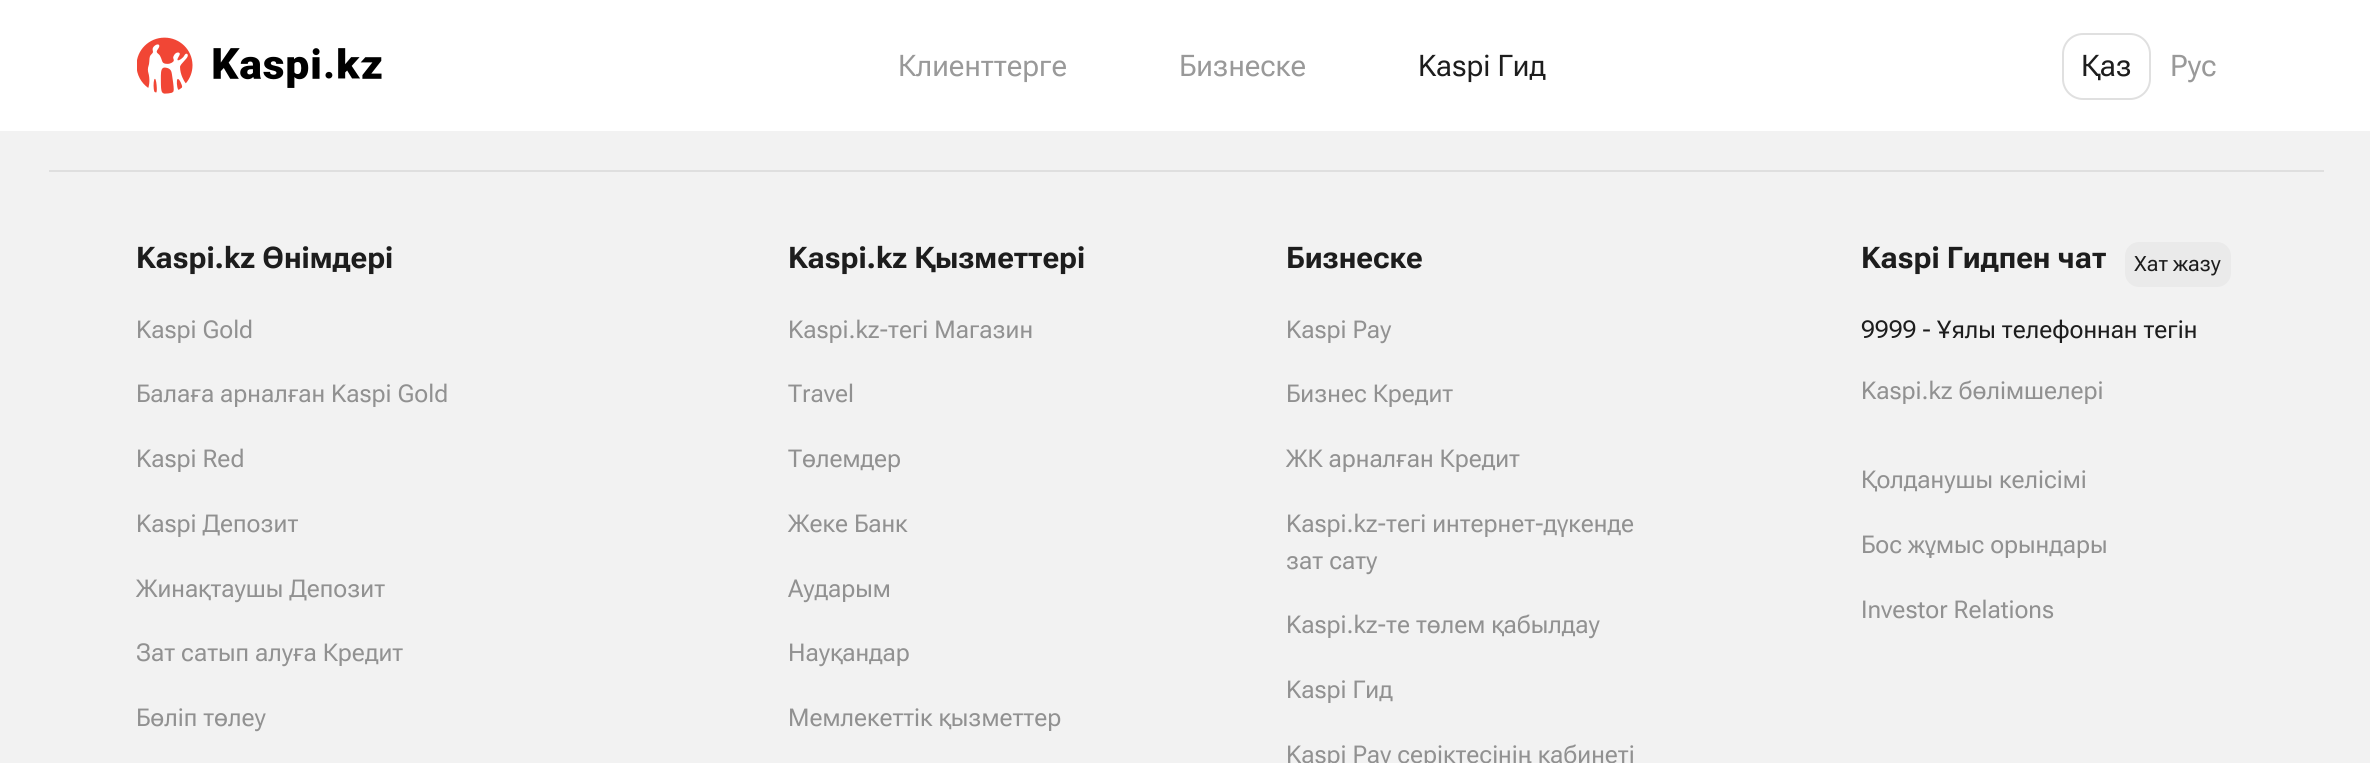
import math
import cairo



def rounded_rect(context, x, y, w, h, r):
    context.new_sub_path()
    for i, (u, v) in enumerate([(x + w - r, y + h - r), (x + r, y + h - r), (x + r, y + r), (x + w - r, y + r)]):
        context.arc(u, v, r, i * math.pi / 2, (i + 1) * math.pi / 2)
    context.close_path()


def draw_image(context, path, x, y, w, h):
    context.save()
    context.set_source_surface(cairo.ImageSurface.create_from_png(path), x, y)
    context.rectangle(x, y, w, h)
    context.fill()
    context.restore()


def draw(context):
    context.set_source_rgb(242 / 255, 242 / 255, 242 / 255)
    context.paint()
    context.set_source_rgb(1, 1, 1)
    context.rectangle(0, 0, 2370, 131)
    context.fill()
    draw_image(context, "images/1.png", 137, 37, 245, 57)
    rounded_rect(context, 2063, 34, 87, 65, 20)
    context.set_source_rgb(224 / 255, 224 / 255, 224 / 255)
    context.stroke()
    context.set_source_rgb(223 / 255, 223 / 255, 223 / 255)
    context.rectangle(49, 170, 2275, 2)
    context.fill()
    context.set_source_rgb(234 / 255, 234 / 255, 234 / 255)
    rounded_rect(context, 2125, 242, 106, 45, 14)
    context.fill()
    context.select_font_face("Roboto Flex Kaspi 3", cairo.FontSlant.ITALIC)
    context.set_font_size(29.75)
    context.set_source_rgb(153 / 255, 153 / 255, 153 / 255)
    context.move_to(898, 76)
    context.show_text("Клиенттерге")
    context.move_to(1179, 76)
    context.show_text("Бизнеске")
    context.set_source_rgb(29 / 255, 29 / 255, 29 / 255)
    context.move_to(1418, 76)
    context.show_text("Kaspi Гид")
    context.select_font_face("Roboto Flex")
    context.move_to(2081, 76)
    context.show_text("Қаз")
    context.set_source_rgb(153 / 255, 153 / 255, 153 / 255)
    context.move_to(2170, 76)
    context.show_text("Рус")
    context.select_font_face("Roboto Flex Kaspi", cairo.FontSlant.ITALIC, cairo.FontWeight.BOLD)
    context.set_source_rgb(29 / 255, 29 / 255, 29 / 255)
    context.move_to(136, 268)
    context.show_text("Kaspi.kz Өнімдері")
    context.select_font_face("Roboto Flex Kaspi", cairo.FontSlant.ITALIC)
    context.set_font_size(24.5)
    context.set_source_rgb(145 / 255, 145 / 255, 145 / 255)
    context.move_to(136, 338)
    context.show_text("Kaspi Gold")
    context.move_to(136, 402)
    context.show_text("Балаға арналған Kaspi Gold")
    context.move_to(136, 467)
    context.show_text("Kaspi Red")
    context.move_to(136, 532)
    context.show_text("Kaspi Депозит")
    context.move_to(136, 597)
    context.show_text("Жинақтаушы Депозит")
    context.move_to(136, 661)
    context.show_text("Зат сатып алуға Кредит")
    context.move_to(136, 726)
    context.show_text("Бөліп төлеу")
    context.select_font_face("Roboto Flex Kaspi", cairo.FontSlant.ITALIC, cairo.FontWeight.BOLD)
    context.set_font_size(29.75)
    context.set_source_rgb(29 / 255, 29 / 255, 29 / 255)
    context.move_to(788, 268)
    context.show_text("Kaspi.kz Қызметтері")
    context.select_font_face("Roboto Flex Kaspi", cairo.FontSlant.ITALIC)
    context.set_font_size(24.5)
    context.set_source_rgb(145 / 255, 145 / 255, 145 / 255)
    context.move_to(788, 338)
    context.show_text("Kaspi.kz-тегі Магазин")
    context.move_to(788, 402)
    context.show_text("Travel")
    context.move_to(788, 467)
    context.show_text("Төлемдер")
    context.move_to(788, 532)
    context.show_text("Жеке Банк")
    context.move_to(788, 597)
    context.show_text("Аударым")
    context.move_to(788, 661)
    context.show_text("Науқандар")
    context.move_to(788, 726)
    context.show_text("Мемлекеттік қызметтер")
    context.select_font_face("Roboto Flex Kaspi", cairo.FontSlant.ITALIC, cairo.FontWeight.BOLD)
    context.set_font_size(29.75)
    context.set_source_rgb(29 / 255, 29 / 255, 29 / 255)
    context.move_to(1286, 268)
    context.show_text("Бизнеске")
    context.select_font_face("Roboto Flex Kaspi", cairo.FontSlant.ITALIC)
    context.set_font_size(24.5)
    context.set_source_rgb(145 / 255, 145 / 255, 145 / 255)
    context.move_to(1286, 338)
    context.show_text("Kaspi Pay")
    context.move_to(1286, 402)
    context.show_text("Бизнес Кредит")
    context.move_to(1286, 467)
    context.show_text("ЖК арналған Кредит")
    context.move_to(1286, 532)
    context.show_text("Kaspi.kz-тегі интернет-дүкенде")
    context.move_to(1286, 569)
    context.show_text("зат сату")
    context.move_to(1286, 633)
    context.show_text("Kaspi.kz-те төлем қабылдау")
    context.move_to(1286, 698)
    context.show_text("Kaspi Гид")
    context.move_to(1286, 763)
    context.show_text("Kaspi Pay серіктесінің кабинеті")
    context.select_font_face("Roboto Flex Kaspi", cairo.FontSlant.ITALIC, cairo.FontWeight.BOLD)
    context.set_font_size(29.75)
    context.set_source_rgb(29 / 255, 29 / 255, 29 / 255)
    context.move_to(1861, 268)
    context.show_text("Kaspi Гидпен чат")
    context.select_font_face("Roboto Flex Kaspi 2", cairo.FontSlant.ITALIC)
    context.set_font_size(21)
    context.move_to(2134, 271)
    context.show_text("Хат жазу")
    context.select_font_face("Roboto Flex Kaspi", cairo.FontSlant.ITALIC)
    context.set_font_size(24.5)
    context.move_to(1861, 338)
    context.show_text("9999 - Ұялы телефоннан тегін")
    context.set_source_rgb(145 / 255, 145 / 255, 145 / 255)
    context.move_to(1861, 399)
    context.show_text("Kaspi.kz бөлімшелері")
    context.move_to(1861, 488)
    context.show_text("Қолданушы келісімі")
    context.move_to(1861, 553)
    context.show_text("Бос жұмыс орындары")
    context.move_to(1861, 618)
    context.show_text("Investor Relations")


surface = cairo.ImageSurface(cairo.Format.RGB24, 2370, 763)
context = cairo.Context(surface)
options = cairo.FontOptions()
options.set_hint_metrics(cairo.HintMetrics.OFF)
options.set_hint_style(cairo.HintStyle.NONE)
context.set_font_options(options)
context.set_miter_limit(4)
draw(context)
surface.write_to_png("out.png")
